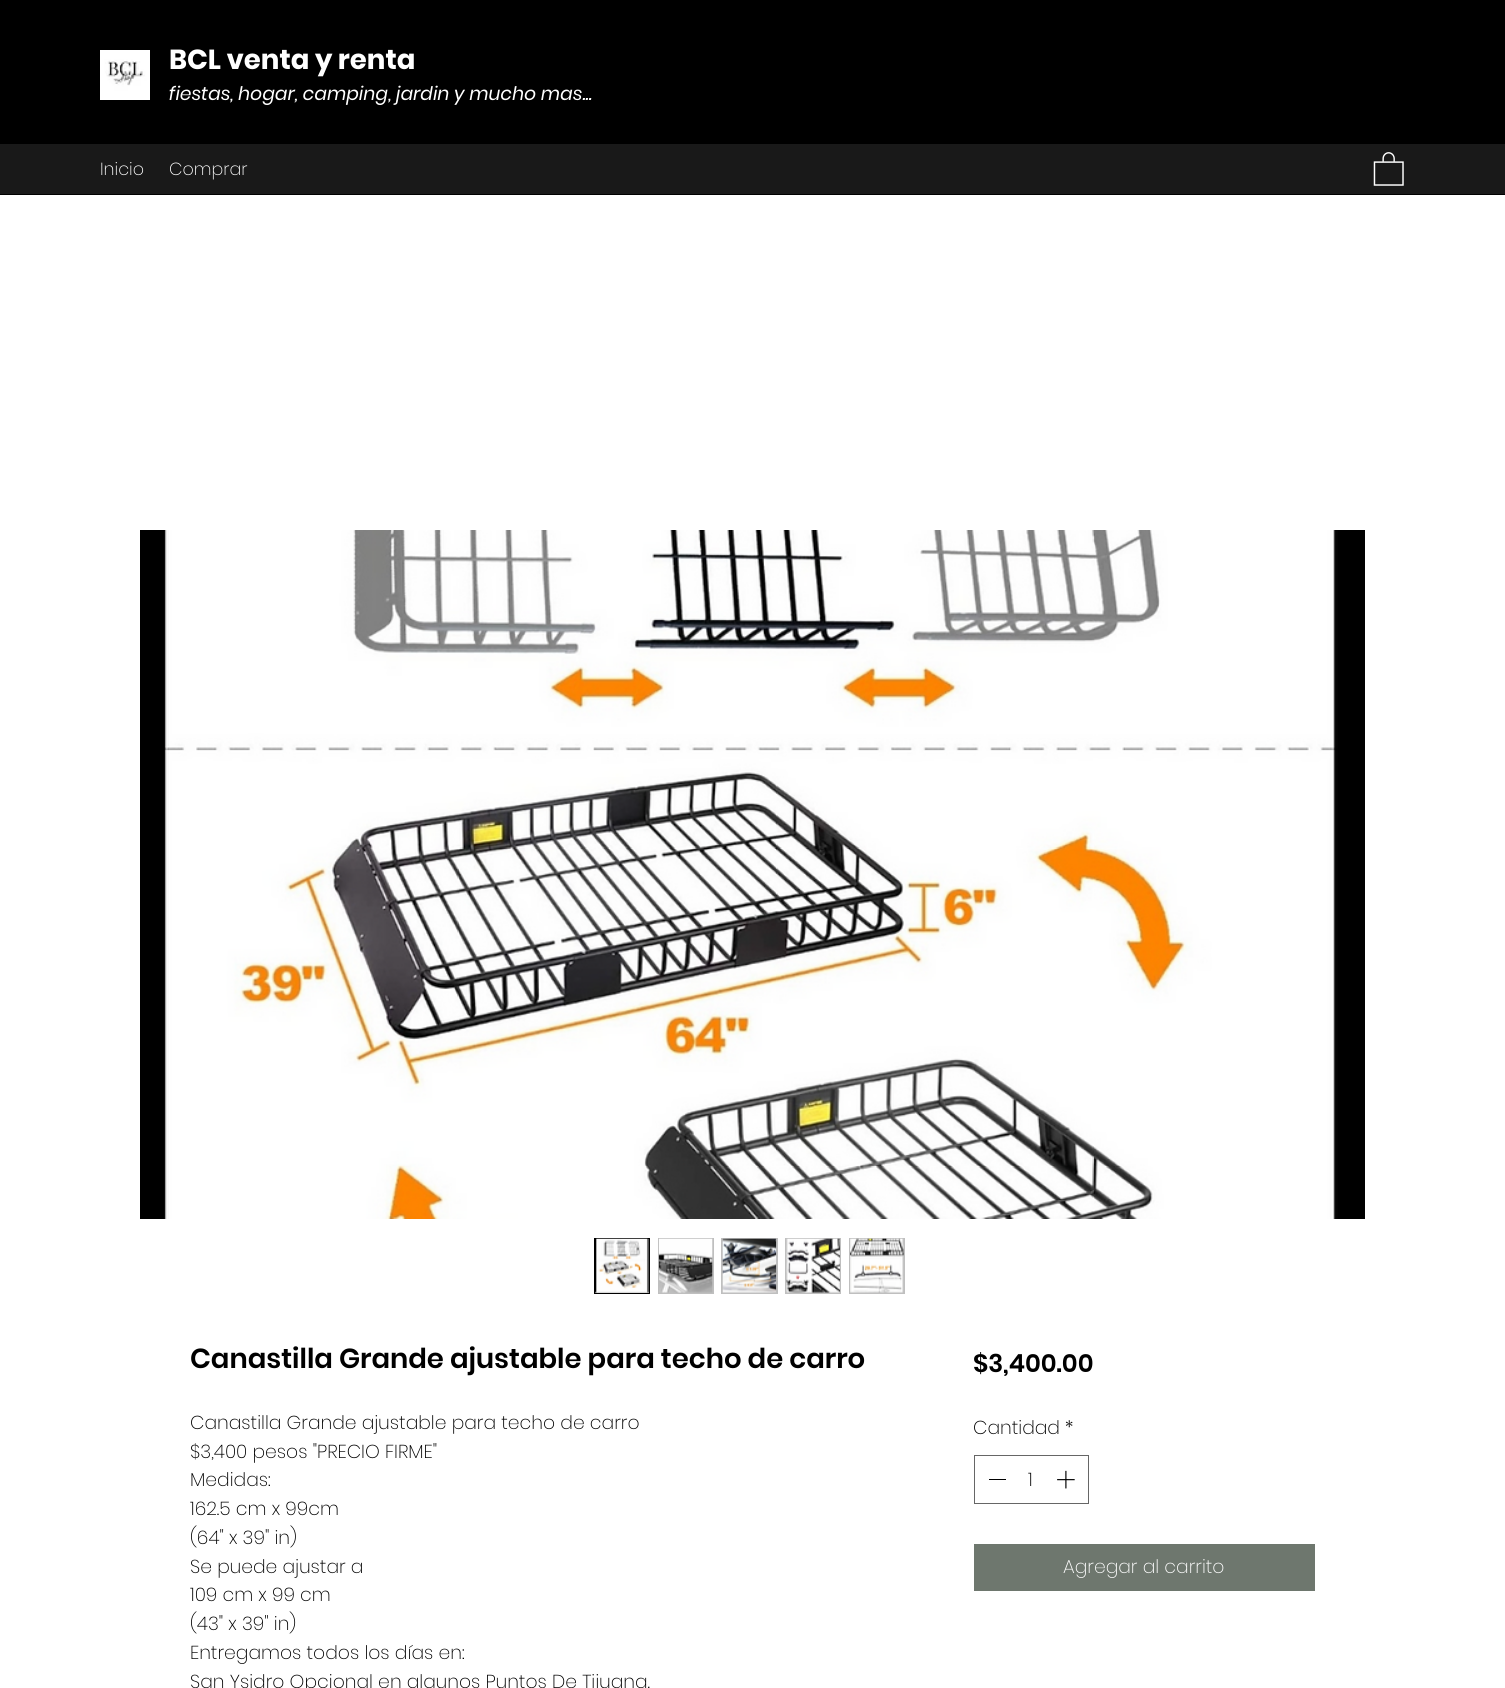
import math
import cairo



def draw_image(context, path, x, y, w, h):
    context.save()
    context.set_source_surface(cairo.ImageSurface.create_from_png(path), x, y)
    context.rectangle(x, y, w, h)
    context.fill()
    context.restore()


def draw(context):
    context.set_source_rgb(1, 1, 1)
    context.paint()
    context.set_source_rgb(0, 0, 0)
    context.rectangle(0, 0, 1505, 195)
    context.fill()
    draw_image(context, "images/1.png", 100, 50, 50, 50)
    context.set_source_rgb(25 / 255, 25 / 255, 25 / 255)
    context.rectangle(0, 144, 1505, 50)
    context.fill()
    draw_image(context, "images/2.png", 1373, 152, 31, 34)
    draw_image(context, "images/3.png", 140, 530, 1225, 689)
    context.set_source_rgb(191 / 255, 191 / 255, 191 / 255)
    context.rectangle(594.5, 1238.5, 55, 55)
    context.fill_preserve()
    context.set_source_rgb(0, 0, 0)
    context.set_line_width(1)
    context.stroke()
    draw_image(context, "images/4.png", 595, 1238, 54, 55)
    context.set_source_rgb(191 / 255, 191 / 255, 191 / 255)
    context.rectangle(658, 1238, 56, 56)
    context.fill()
    draw_image(context, "images/5.png", 658, 1238, 55, 55)
    context.rectangle(721, 1238, 57, 56)
    context.fill()
    draw_image(context, "images/6.png", 722, 1238, 55, 55)
    context.rectangle(785, 1238, 56, 56)
    context.fill()
    draw_image(context, "images/7.png", 786, 1238, 54, 55)
    context.rectangle(849, 1238, 56, 56)
    context.fill()
    draw_image(context, "images/8.png", 850, 1238, 54, 55)
    context.rectangle(974.5, 1455.5, 114, 48)
    context.set_source_rgb(102 / 255, 102 / 255, 102 / 255)
    context.stroke()
    context.set_source_rgb(0, 0, 0)
    context.rectangle(989, 1479, 17, 1)
    context.fill()
    draw_image(context, "images/9.png", 1057, 1470, 18, 19)
    context.set_source_rgb(110 / 255, 119 / 255, 110 / 255)
    context.rectangle(974, 1544, 341, 47)
    context.fill()
    context.select_font_face("Poppins", cairo.FontSlant.NORMAL, cairo.FontWeight.BOLD)
    context.set_font_size(27.5)
    context.set_source_rgb(1, 1, 1)
    context.move_to(169, 69)
    context.show_text("BCL venta y renta")
    context.select_font_face("Poppins", cairo.FontSlant.ITALIC)
    context.set_font_size(18.75)
    context.move_to(169, 100)
    context.show_text("fiestas, hogar, camping, jardin y mucho mas...")
    context.select_font_face("Poppins ExtraLight")
    context.set_font_size(17.5)
    context.move_to(100, 175)
    context.show_text("Inicio")
    context.move_to(169, 175)
    context.show_text("Comprar")
    context.select_font_face("Poppins SemiBold")
    context.set_font_size(27.5)
    context.set_source_rgb(0, 0, 0)
    context.move_to(190, 1368)
    context.show_text("Canastilla Grande ajustable para techo de carro")
    context.select_font_face("Poppins ExtraLight")
    context.set_font_size(18.75)
    context.move_to(190, 1429)
    context.show_text("Canastilla Grande ajustable para techo de carro")
    context.move_to(190, 1458)
    context.show_text("$3,400 pesos \"PRECIO FIRME\"")
    context.move_to(190, 1486)
    context.show_text("Medidas:")
    context.move_to(190, 1515)
    context.show_text("162.5 cm x 99cm")
    context.move_to(190, 1544)
    context.show_text("(64\" x 39\" in)")
    context.move_to(190, 1573)
    context.show_text("Se puede ajustar a")
    context.move_to(190, 1601)
    context.show_text("109 cm x 99 cm")
    context.move_to(190, 1630)
    context.show_text("(43\" x 39\" in)")
    context.move_to(190, 1659)
    context.show_text("Entregamos todos los días en:")
    context.move_to(190, 1688)
    context.show_text("San Ysidro Opcional en algunos Puntos De Tijuana.")
    context.select_font_face("Poppins SemiBold")
    context.set_font_size(25)
    context.move_to(973, 1372)
    context.show_text("$3,400.00")
    context.select_font_face("Poppins ExtraLight")
    context.set_font_size(18.75)
    context.move_to(973, 1434)
    context.show_text("Cantidad *")
    context.move_to(1028, 1486)
    context.show_text("1")
    context.set_source_rgb(1, 1, 1)
    context.move_to(1063, 1573)
    context.show_text("Agregar al carrito")


surface = cairo.ImageSurface(cairo.Format.RGB24, 1505, 1688)
context = cairo.Context(surface)
options = cairo.FontOptions()
options.set_hint_metrics(cairo.HintMetrics.OFF)
options.set_hint_style(cairo.HintStyle.NONE)
context.set_font_options(options)
context.set_miter_limit(4)
draw(context)
surface.write_to_png("out.png")
